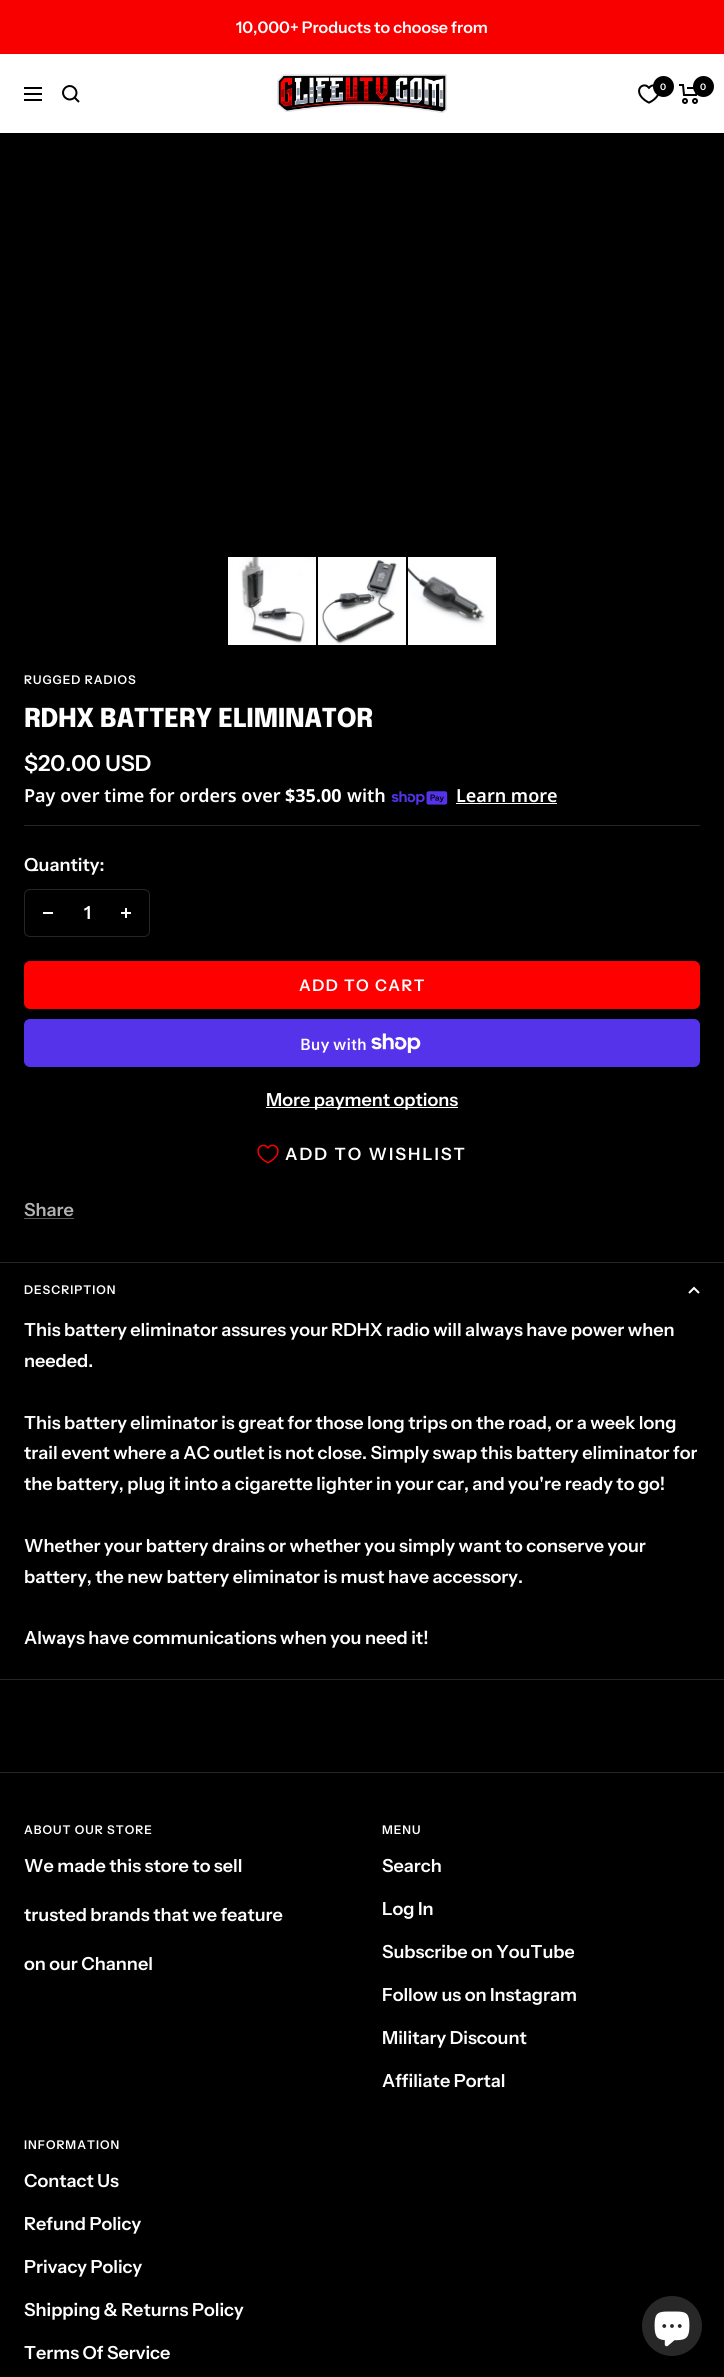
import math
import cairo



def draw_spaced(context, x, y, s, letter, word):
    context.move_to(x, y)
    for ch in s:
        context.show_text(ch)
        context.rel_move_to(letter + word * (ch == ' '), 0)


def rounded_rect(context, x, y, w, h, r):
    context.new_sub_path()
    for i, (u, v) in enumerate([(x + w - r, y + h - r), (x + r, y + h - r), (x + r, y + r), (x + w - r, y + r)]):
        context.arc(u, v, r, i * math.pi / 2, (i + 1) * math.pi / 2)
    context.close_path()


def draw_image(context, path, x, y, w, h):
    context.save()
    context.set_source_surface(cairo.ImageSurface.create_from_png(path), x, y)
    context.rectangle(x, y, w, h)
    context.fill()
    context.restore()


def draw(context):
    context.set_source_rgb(0, 0, 0)
    context.paint()
    context.set_source_rgb(249 / 255, 0, 0)
    context.rectangle(0, 0, 724, 54)
    context.fill()
    context.set_source_rgb(1, 1, 1)
    context.rectangle(0, 54, 724, 79)
    context.fill()
    context.new_path()
    context.move_to(24, 88)
    context.line_to(42, 88)
    context.move_to(24, 100)
    context.line_to(42, 100)
    context.close_path()
    context.move_to(24, 94)
    context.line_to(42, 94)
    context.close_path()
    context.move_to(74.5, 97.5)
    context.curve_to(80.5, 91, 71.5, 82, 65, 88)
    context.curve_to(59, 94.5, 68, 103.5, 74.5, 97.5)
    context.close_path()
    context.move_to(74.5, 97.5)
    context.line_to(79, 102)
    context.set_source_rgb(0, 0, 0)
    context.stroke()
    draw_image(context, "images/1.png", 277, 74, 170, 39)
    draw_image(context, "images/2.png", 638, 84, 21, 20)
    context.arc(663.5, 86.5, 10.5, 0, 2 * math.pi)
    context.fill()
    context.new_path()
    context.move_to(679, 85)
    context.line_to(683, 85)
    context.line_to(684, 95)
    context.line_to(696, 95)
    context.line_to(698, 88)
    context.line_to(687, 88)
    context.stroke()
    context.arc(685, 101, 2, 0, 2 * math.pi)
    context.stroke()
    context.arc(695, 101, 2, 0, 2 * math.pi)
    context.stroke()
    context.arc(703.5, 86.5, 10.5, 0, 2 * math.pi)
    context.fill()
    draw_image(context, "images/3.png", 228, 557, 88, 88)
    draw_image(context, "images/4.png", 318, 557, 88, 88)
    draw_image(context, "images/5.png", 408, 557, 88, 88)
    context.set_source_rgb(38 / 255, 38 / 255, 38 / 255)
    context.rectangle(24, 825, 676, 1)
    context.fill()
    draw_image(context, "images/6.png", 391, 791, 57, 14)
    context.set_source_rgb(1, 1, 1)
    context.rectangle(456, 803, 101, 1)
    context.fill()
    rounded_rect(context, 24.5, 889.5, 125, 47, 5.5)
    context.set_source_rgb(38 / 255, 38 / 255, 38 / 255)
    context.set_line_width(1)
    context.stroke()
    context.set_source_rgb(1, 1, 1)
    context.rectangle(43, 912, 10, 2)
    context.fill()
    draw_image(context, "images/7.png", 121, 908, 10, 10)
    context.set_source_rgb(1, 0, 0)
    rounded_rect(context, 24, 961, 676, 48, 6)
    context.fill()
    context.set_source_rgb(84 / 255, 51 / 255, 235 / 255)
    rounded_rect(context, 24, 1019, 676, 48, 6)
    context.fill()
    draw_image(context, "images/8.png", 371, 1033, 50, 20)
    context.set_source_rgb(1, 1, 1)
    context.rectangle(266, 1107, 192, 1)
    context.fill()
    draw_image(context, "images/9.png", 257, 1144, 22, 20)
    context.set_source_rgb(89 / 255, 89 / 255, 89 / 255)
    context.rectangle(24, 1218, 50, 1)
    context.fill()
    context.set_source_rgb(38 / 255, 38 / 255, 38 / 255)
    context.rectangle(0, 1262, 724, 1)
    context.fill()
    context.rectangle(0, 1679, 724, 1)
    context.fill()
    context.new_path()
    context.move_to(699, 1293)
    context.line_to(694, 1288)
    context.line_to(689, 1293)
    context.set_source_rgb(1, 1, 1)
    context.set_line_width(2)
    context.stroke()
    context.set_source_rgb(38 / 255, 38 / 255, 38 / 255)
    context.rectangle(0, 1772, 724, 1)
    context.fill()
    context.set_source_rgb(40 / 255, 40 / 255, 40 / 255)
    context.arc(672, 2326, 30, 0, 2 * math.pi)
    context.fill()
    draw_image(context, "images/10.png", 654, 2311, 36, 36)
    context.select_font_face("Instrument Sans SemiBold")
    context.set_font_size(16)
    context.set_source_rgb(1, 1, 1)
    context.move_to(236, 33)
    context.show_text("10,000+ Products to choose from")
    context.set_font_size(9)
    context.move_to(660, 90)
    context.show_text("0")
    context.move_to(700, 90)
    context.show_text("0")
    context.set_font_size(12)
    draw_spaced(context, 24, 684, "RUGGED RADIOS", 1, 0)
    context.select_font_face("Epilogue ExtraBold")
    context.set_font_size(26)
    draw_spaced(context, 24, 727, "RDHX BATTERY ELIMINATOR", -0.4, 0)
    context.select_font_face("Instrument Sans SemiBold")
    context.set_font_size(22)
    context.move_to(24, 771)
    context.show_text("$20.00 USD")
    context.select_font_face("Noto Sans SemiBold")
    context.set_font_size(18)
    context.move_to(24, 802)
    context.show_text("Pay over time for orders over")
    context.select_font_face("Noto Sans", cairo.FontSlant.NORMAL, cairo.FontWeight.BOLD)
    context.move_to(285, 802)
    context.show_text("$35.00")
    context.select_font_face("Noto Sans SemiBold")
    context.move_to(347, 802)
    context.show_text("with")
    context.move_to(456, 802)
    context.show_text("Learn more")
    context.select_font_face("Instrument Sans SemiBold")
    context.move_to(24, 871)
    context.show_text("Quantity:")
    context.move_to(84, 919)
    context.show_text("1")
    context.set_font_size(16)
    draw_spaced(context, 299, 991, "ADD TO CART", 1.5, 0)
    context.select_font_face("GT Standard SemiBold")
    context.move_to(300, 1050)
    context.show_text("Buy with")
    context.select_font_face("Instrument Sans SemiBold")
    context.set_font_size(18)
    context.move_to(266, 1106)
    context.show_text("More payment options")
    context.set_font_size(17)
    draw_spaced(context, 285, 1160, "ADD TO WISHLIST", 2, 0)
    context.set_font_size(18)
    context.set_source_rgb(179 / 255, 179 / 255, 179 / 255)
    context.move_to(24, 1216)
    context.show_text("Share")
    context.set_font_size(12)
    context.set_source_rgb(1, 1, 1)
    draw_spaced(context, 24, 1294, "DESCRIPTION", 1, 0)
    context.set_font_size(18)
    context.move_to(24, 1336)
    context.show_text("This battery eliminator assures your RDHX radio will always have power when")
    context.move_to(24, 1367)
    context.show_text("needed.")
    context.move_to(24, 1429)
    context.show_text("This battery eliminator is great for those long trips on the road, or a week long")
    context.move_to(24, 1459)
    context.show_text("trail event where a AC outlet is not close. Simply swap this battery eliminator for")
    context.move_to(24, 1490)
    context.show_text("the battery, plug it into a cigarette lighter in your car, and you're ready to go!")
    context.move_to(24, 1552)
    context.show_text("Whether your battery drains or whether you simply want to conserve your")
    context.move_to(24, 1583)
    context.show_text("battery, the new battery eliminator is must have accessory.")
    context.move_to(24, 1644)
    context.show_text("Always have communications when you need it!")
    context.set_font_size(12)
    draw_spaced(context, 24, 1834, "ABOUT OUR STORE", 1, 0)
    context.set_font_size(18)
    context.move_to(24, 1872)
    context.show_text("We made this store to sell")
    context.move_to(24, 1921)
    context.show_text("trusted brands that we feature")
    context.move_to(24, 1970)
    context.show_text("on our Channel")
    context.set_font_size(12)
    draw_spaced(context, 382, 1834, "MENU", 1, 0)
    context.set_font_size(18)
    context.move_to(382, 1872)
    context.show_text("Search")
    context.move_to(382, 1915)
    context.show_text("Log In")
    context.move_to(382, 1958)
    context.show_text("Subscribe on YouTube")
    context.move_to(382, 2001)
    context.show_text("Follow us on Instagram")
    context.move_to(382, 2044)
    context.show_text("Military Discount")
    context.move_to(382, 2087)
    context.show_text("Affiliate Portal")
    context.set_font_size(12)
    draw_spaced(context, 24, 2149, "INFORMATION", 1, 0)
    context.set_font_size(18)
    context.move_to(24, 2187)
    context.show_text("Contact Us")
    context.move_to(24, 2230)
    context.show_text("Refund Policy")
    context.move_to(24, 2273)
    context.show_text("Privacy Policy")
    context.move_to(24, 2316)
    context.show_text("Shipping & Returns Policy")
    context.move_to(24, 2359)
    context.show_text("Terms Of Service")


surface = cairo.ImageSurface(cairo.Format.RGB24, 724, 2377)
context = cairo.Context(surface)
options = cairo.FontOptions()
options.set_hint_metrics(cairo.HintMetrics.OFF)
options.set_hint_style(cairo.HintStyle.NONE)
context.set_font_options(options)
context.set_miter_limit(4)
draw(context)
surface.write_to_png("out.png")
